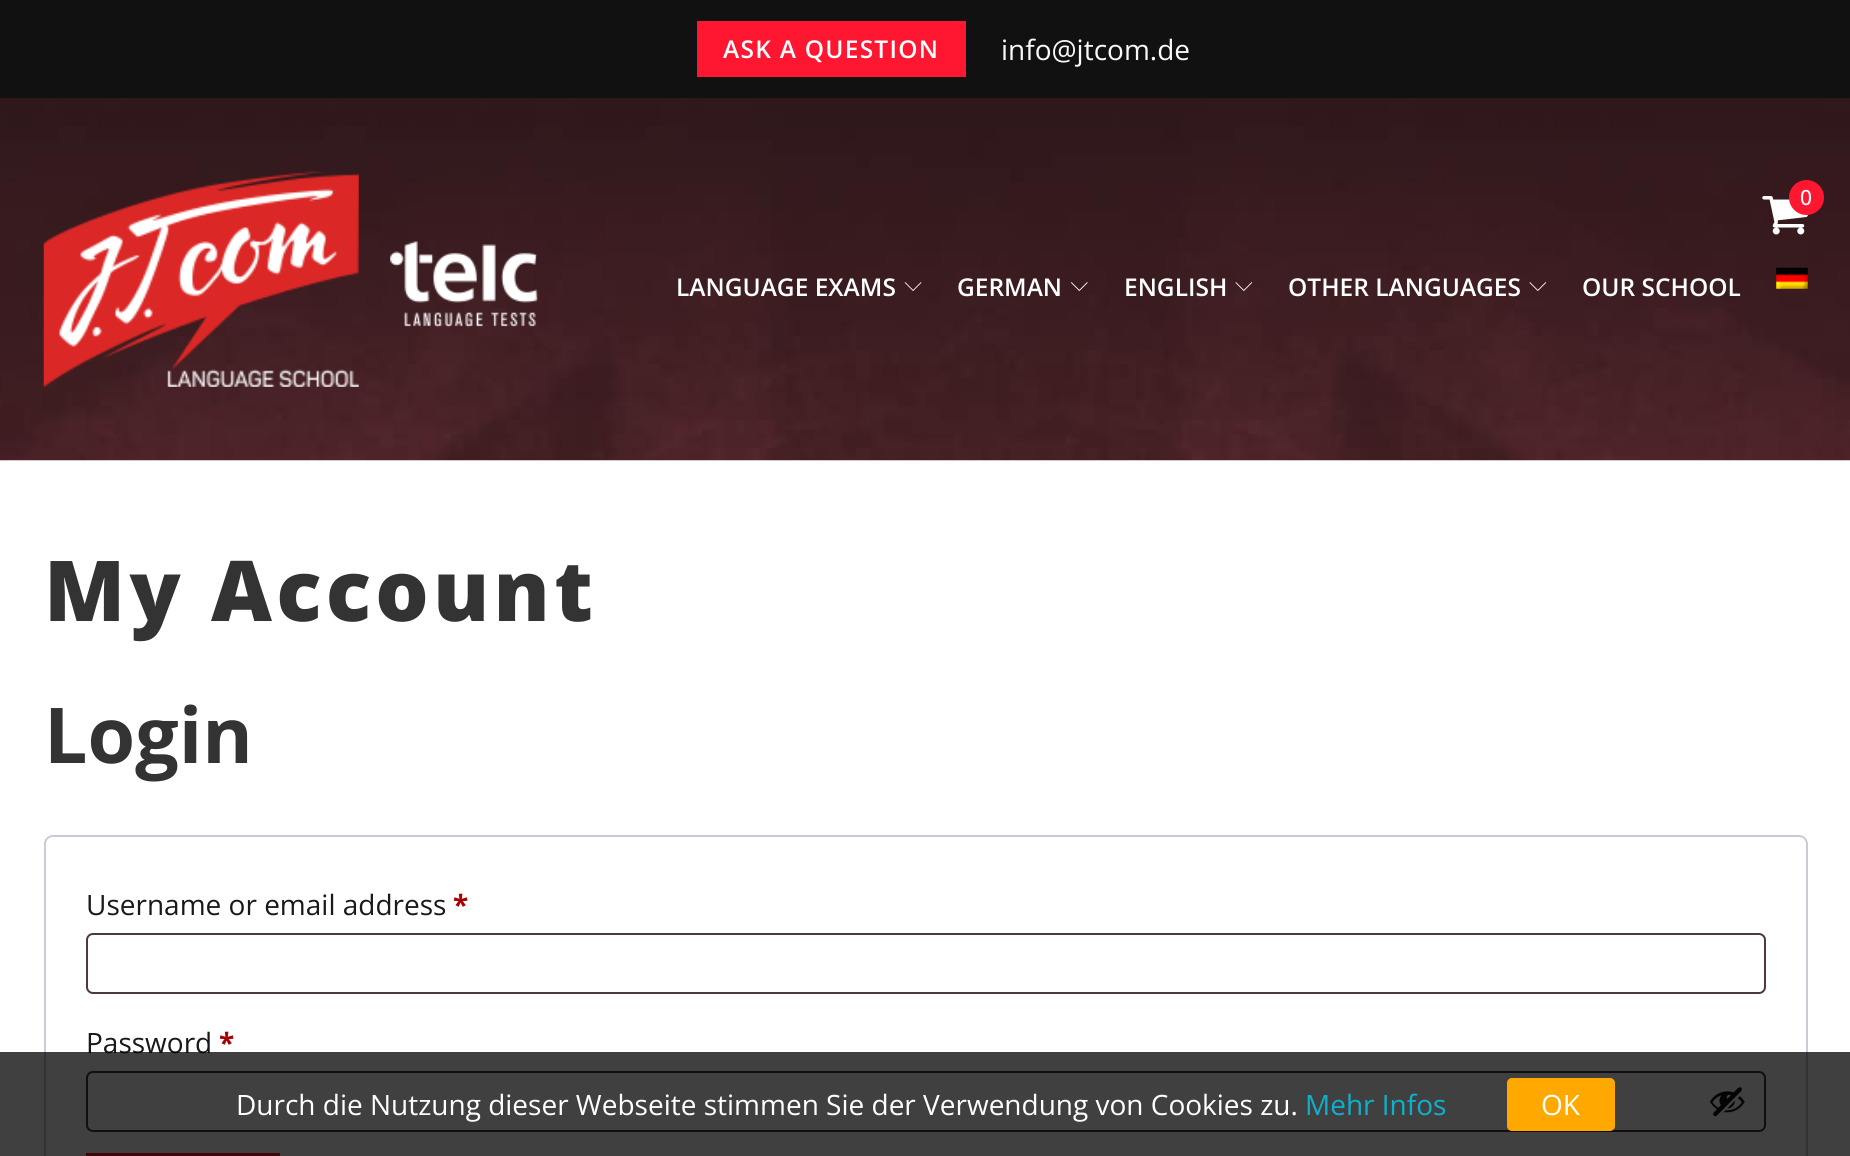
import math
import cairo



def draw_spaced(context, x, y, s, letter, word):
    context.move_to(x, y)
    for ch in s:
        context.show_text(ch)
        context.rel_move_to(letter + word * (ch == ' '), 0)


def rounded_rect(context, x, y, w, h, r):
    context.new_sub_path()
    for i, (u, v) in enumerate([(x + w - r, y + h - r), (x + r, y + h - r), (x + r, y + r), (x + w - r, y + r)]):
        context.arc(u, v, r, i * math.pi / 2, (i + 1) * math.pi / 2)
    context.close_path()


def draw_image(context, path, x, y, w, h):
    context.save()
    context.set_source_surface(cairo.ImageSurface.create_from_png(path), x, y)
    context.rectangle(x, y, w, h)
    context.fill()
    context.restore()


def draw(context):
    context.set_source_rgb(1, 1, 1)
    context.paint()
    context.set_source_rgb(17 / 255, 17 / 255, 17 / 255)
    context.rectangle(0, 0, 1850, 98)
    context.fill()
    context.set_source_rgb(1, 22 / 255, 49 / 255)
    context.rectangle(697, 21, 269, 56)
    context.fill()
    draw_image(context, "images/1.png", 0, 98, 1850, 363)
    draw_image(context, "images/2.png", 43, 171, 316, 216)
    draw_image(context, "images/3.png", 1762, 196, 46, 39)
    context.arc(1806.5, 197.5, 17.5, 0, 2 * math.pi)
    context.fill()
    draw_image(context, "images/4.png", 390, 241, 148, 87)
    draw_image(context, "images/5.png", 904, 282, 18, 9)
    draw_image(context, "images/6.png", 1071, 282, 17, 9)
    draw_image(context, "images/7.png", 1235, 282, 18, 9)
    draw_image(context, "images/8.png", 1529, 282, 18, 9)
    draw_image(context, "images/9.png", 1776, 267, 32, 22)
    rounded_rect(context, 45, 836, 1762, 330, 8)
    context.set_source_rgb(207 / 255, 200 / 255, 216 / 255)
    context.stroke()
    rounded_rect(context, 87, 934, 1678, 59, 6)
    context.set_source_rgb(77 / 255, 57 / 255, 57 / 255)
    context.stroke()
    rounded_rect(context, 87, 1072, 1678, 59, 6)
    context.stroke()
    draw_image(context, "images/10.png", 1710, 1087, 35, 30)
    context.set_source_rgb(1, 22 / 255, 49 / 255)
    context.rectangle(86, 1153, 194, 3)
    context.fill()
    context.select_font_face("Open Sans SemiBold")
    context.set_font_size(24.5)
    context.set_source_rgb(1, 1, 1)
    draw_spaced(context, 723, 58, "ASK A QUESTION", 1.25, 0)
    context.select_font_face("Open Sans")
    context.set_font_size(28)
    context.set_source_rgb(249 / 255, 249 / 255, 249 / 255)
    context.move_to(1001, 60)
    context.show_text("info@jtcom.de")
    context.select_font_face("Open Sans Medium")
    context.set_font_size(21)
    context.set_source_rgb(1, 1, 1)
    context.move_to(1800, 205)
    context.show_text("0")
    context.select_font_face("Open Sans SemiBold")
    context.set_font_size(24.5)
    context.move_to(676, 296)
    context.show_text("LANGUAGE EXAMS")
    context.move_to(957, 296)
    context.show_text("GERMAN")
    context.move_to(1124, 296)
    context.show_text("ENGLISH")
    context.move_to(1288, 296)
    context.show_text("OTHER LANGUAGES")
    context.move_to(1582, 296)
    context.show_text("OUR SCHOOL")
    context.select_font_face("Open Sans ExtraBold")
    context.set_font_size(84)
    context.set_source_rgb(51 / 255, 51 / 255, 51 / 255)
    draw_spaced(context, 44, 621, "My Account", 4.25, 0)
    context.select_font_face("Open Sans", cairo.FontSlant.NORMAL, cairo.FontWeight.BOLD)
    context.set_font_size(77)
    context.move_to(44, 763)
    context.show_text("Login")
    context.select_font_face("Open Sans")
    context.set_font_size(28)
    context.set_source_rgb(26 / 255, 24 / 255, 24 / 255)
    context.move_to(86, 915)
    context.show_text("Username or email address")
    context.select_font_face("Open Sans", cairo.FontSlant.NORMAL, cairo.FontWeight.BOLD)
    context.set_source_rgb(170 / 255, 0, 0)
    context.move_to(453, 915)
    context.show_text("*")
    context.select_font_face("Open Sans")
    context.set_source_rgb(26 / 255, 24 / 255, 24 / 255)
    context.move_to(86, 1053)
    context.show_text("Password")
    context.select_font_face("Open Sans", cairo.FontSlant.NORMAL, cairo.FontWeight.BOLD)
    context.set_source_rgb(170 / 255, 0, 0)
    context.move_to(219, 1053)
    context.show_text("*")
    context.set_source_rgba(0, 0, 0, 0.75)
    context.rectangle(0, 1052, 1850, 104)
    context.fill()
    context.select_font_face("Open Sans")
    context.set_source_rgb(1, 1, 1)
    context.move_to(236, 1115)
    context.show_text("Durch die Nutzung dieser Webseite stimmen Sie der Verwendung von Cookies zu.")
    context.set_source_rgb(13 / 255, 177 / 255, 205 / 255)
    context.move_to(1305, 1115)
    context.show_text("Mehr Infos")
    context.set_source_rgb(1, 168 / 255, 0)
    rounded_rect(context, 1507, 1078, 108, 53, 5)
    context.fill()
    context.set_source_rgb(1, 1, 1)
    context.move_to(1541, 1115)
    context.show_text("OK")


surface = cairo.ImageSurface(cairo.Format.RGB24, 1850, 1156)
context = cairo.Context(surface)
options = cairo.FontOptions()
options.set_hint_metrics(cairo.HintMetrics.OFF)
options.set_hint_style(cairo.HintStyle.NONE)
context.set_font_options(options)
context.set_miter_limit(4)
draw(context)
surface.write_to_png("out.png")
